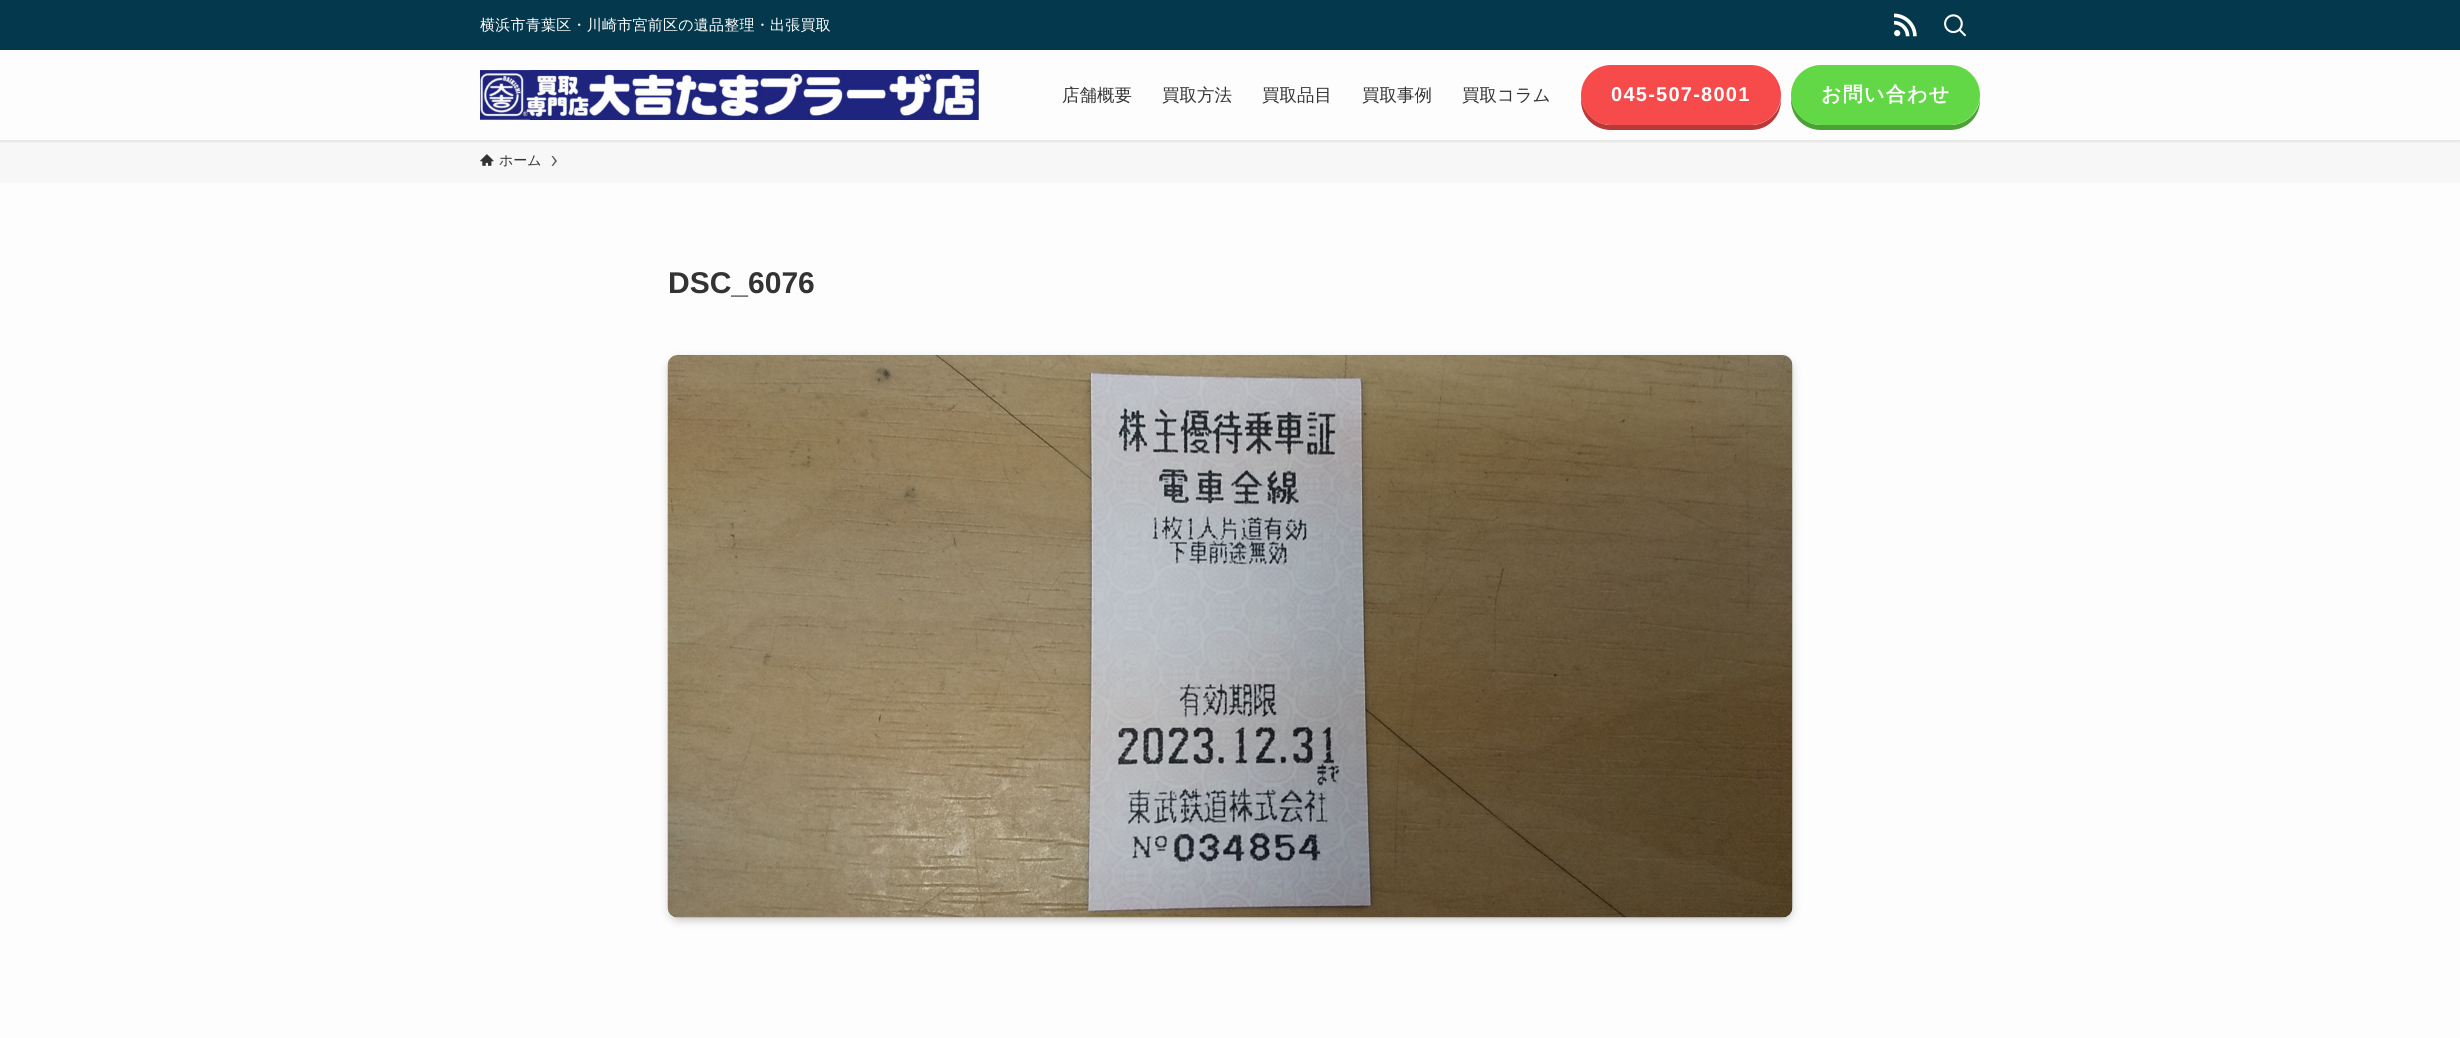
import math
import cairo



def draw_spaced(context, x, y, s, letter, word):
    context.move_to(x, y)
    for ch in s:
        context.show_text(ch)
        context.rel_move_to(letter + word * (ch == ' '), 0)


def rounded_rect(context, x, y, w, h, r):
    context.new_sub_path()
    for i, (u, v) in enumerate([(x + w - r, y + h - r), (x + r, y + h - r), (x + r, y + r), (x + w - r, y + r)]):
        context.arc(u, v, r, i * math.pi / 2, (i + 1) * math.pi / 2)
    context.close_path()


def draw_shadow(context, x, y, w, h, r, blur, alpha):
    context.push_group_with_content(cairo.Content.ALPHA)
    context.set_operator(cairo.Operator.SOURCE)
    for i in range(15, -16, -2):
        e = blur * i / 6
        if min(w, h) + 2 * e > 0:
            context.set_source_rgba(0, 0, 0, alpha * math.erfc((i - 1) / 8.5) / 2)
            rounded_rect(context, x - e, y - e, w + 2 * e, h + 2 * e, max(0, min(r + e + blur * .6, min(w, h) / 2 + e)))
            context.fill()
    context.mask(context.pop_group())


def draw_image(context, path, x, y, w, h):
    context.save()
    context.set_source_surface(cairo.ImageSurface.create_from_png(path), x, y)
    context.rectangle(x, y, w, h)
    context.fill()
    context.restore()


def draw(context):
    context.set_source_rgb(253 / 255, 253 / 255, 253 / 255)
    context.paint()
    context.set_source_rgb(247 / 255, 247 / 255, 247 / 255)
    context.rectangle(0, 140, 2460, 43)
    context.fill()
    context.save()
    context.rectangle(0, 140, 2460, 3)
    context.clip()
    context.set_source_rgb(0, 0, 0)
    draw_shadow(context, 0, 1, 2460, 140, 0, 2.5, 0.12)
    context.restore()
    context.set_source_rgb(4 / 255, 56 / 255, 76 / 255)
    context.rectangle(0, 0, 2460, 50)
    context.fill()
    draw_image(context, "images/1.png", 1894, 13, 23, 24)
    draw_image(context, "images/2.png", 1944, 14, 22, 23)
    draw_image(context, "images/3.png", 480, 70, 499, 50)
    context.set_source_rgb(185 / 255, 56 / 255, 56 / 255)
    context.new_path()
    context.move_to(1581, 96)
    context.line_to(1581, 100)
    context.curve_to(1581, 117, 1594, 130, 1611, 130)
    context.line_to(1751, 130)
    context.curve_to(1768, 130, 1781, 117, 1781, 100)
    context.line_to(1781, 99)
    context.curve_to(1779, 114, 1766, 125, 1751, 125)
    context.line_to(1611, 125)
    context.curve_to(1595, 125, 1582, 112, 1581, 96)
    context.close_path()
    context.fill()
    context.set_source_rgb(247 / 255, 74 / 255, 74 / 255)
    rounded_rect(context, 1581, 65, 200, 60, 30)
    context.fill()
    context.set_source_rgb(74 / 255, 162 / 255, 53 / 255)
    context.new_path()
    context.move_to(1791, 96)
    context.line_to(1791, 100)
    context.curve_to(1791, 117, 1804, 130, 1821, 130)
    context.line_to(1950, 130)
    context.curve_to(1967, 130, 1980, 117, 1980, 100)
    context.line_to(1980, 98)
    context.curve_to(1979, 113, 1966, 125, 1950, 125)
    context.line_to(1821, 125)
    context.curve_to(1805, 125, 1792, 112, 1791, 96)
    context.close_path()
    context.fill()
    context.set_source_rgb(98 / 255, 216 / 255, 71 / 255)
    rounded_rect(context, 1791, 65, 189, 60, 30)
    context.fill()
    draw_image(context, "images/4.png", 480, 154, 14, 12)
    context.set_source_rgb(90 / 255, 90 / 255, 90 / 255)
    context.new_path()
    context.move_to(553, 156)
    context.line_to(551.5, 156)
    context.line_to(555, 161)
    context.line_to(551.5, 166)
    context.line_to(553, 166)
    context.line_to(557, 161)
    context.close_path()
    context.fill()
    context.set_source_rgb(0, 0, 0)
    draw_shadow(context, 673, 365, 1115, 553, 5, 5, 0.2)
    draw_shadow(context, 668, 358, 1125, 562, 10, 5, 0.1)
    draw_image(context, "images/5.png", 667, 355, 1126, 563)
    context.select_font_face("WenQuanYi Zen Hei Medium")
    context.set_font_size(15)
    context.set_source_rgb(1, 1, 1)
    draw_spaced(context, 480, 30, "横浜市青葉区・川崎市宮前区の遺品整理・出張買取", 0.25, 0)
    context.set_font_size(17.5)
    context.set_source_rgb(51 / 255, 51 / 255, 51 / 255)
    context.move_to(1062, 101)
    context.show_text("店舗概要")
    context.move_to(1162, 101)
    context.show_text("買取方法")
    context.move_to(1262, 101)
    context.show_text("買取品目")
    context.move_to(1362, 101)
    context.show_text("買取事例")
    context.move_to(1462, 101)
    context.show_text("買取コラム")
    context.select_font_face("Liberation Sans", cairo.FontSlant.NORMAL, cairo.FontWeight.BOLD)
    context.set_font_size(20)
    context.set_source_rgb(1, 1, 1)
    draw_spaced(context, 1611, 101, "045-507-8001", 1.25, 0)
    context.select_font_face("WenQuanYi Zen Hei", cairo.FontSlant.NORMAL, cairo.FontWeight.BOLD)
    draw_spaced(context, 1821, 101, "お問い合わせ", 1.25, 0)
    context.select_font_face("WenQuanYi Zen Hei Medium")
    context.set_font_size(14)
    context.set_source_rgb(51 / 255, 51 / 255, 51 / 255)
    context.move_to(499, 165)
    context.show_text("ホーム")
    context.select_font_face("Liberation Sans", cairo.FontSlant.NORMAL, cairo.FontWeight.BOLD)
    context.set_font_size(30)
    context.move_to(668, 293)
    context.show_text("DSC_6076")


surface = cairo.ImageSurface(cairo.Format.RGB24, 2460, 1038)
context = cairo.Context(surface)
options = cairo.FontOptions()
options.set_hint_metrics(cairo.HintMetrics.OFF)
options.set_hint_style(cairo.HintStyle.NONE)
context.set_font_options(options)
context.set_miter_limit(4)
draw(context)
surface.write_to_png("out.png")
